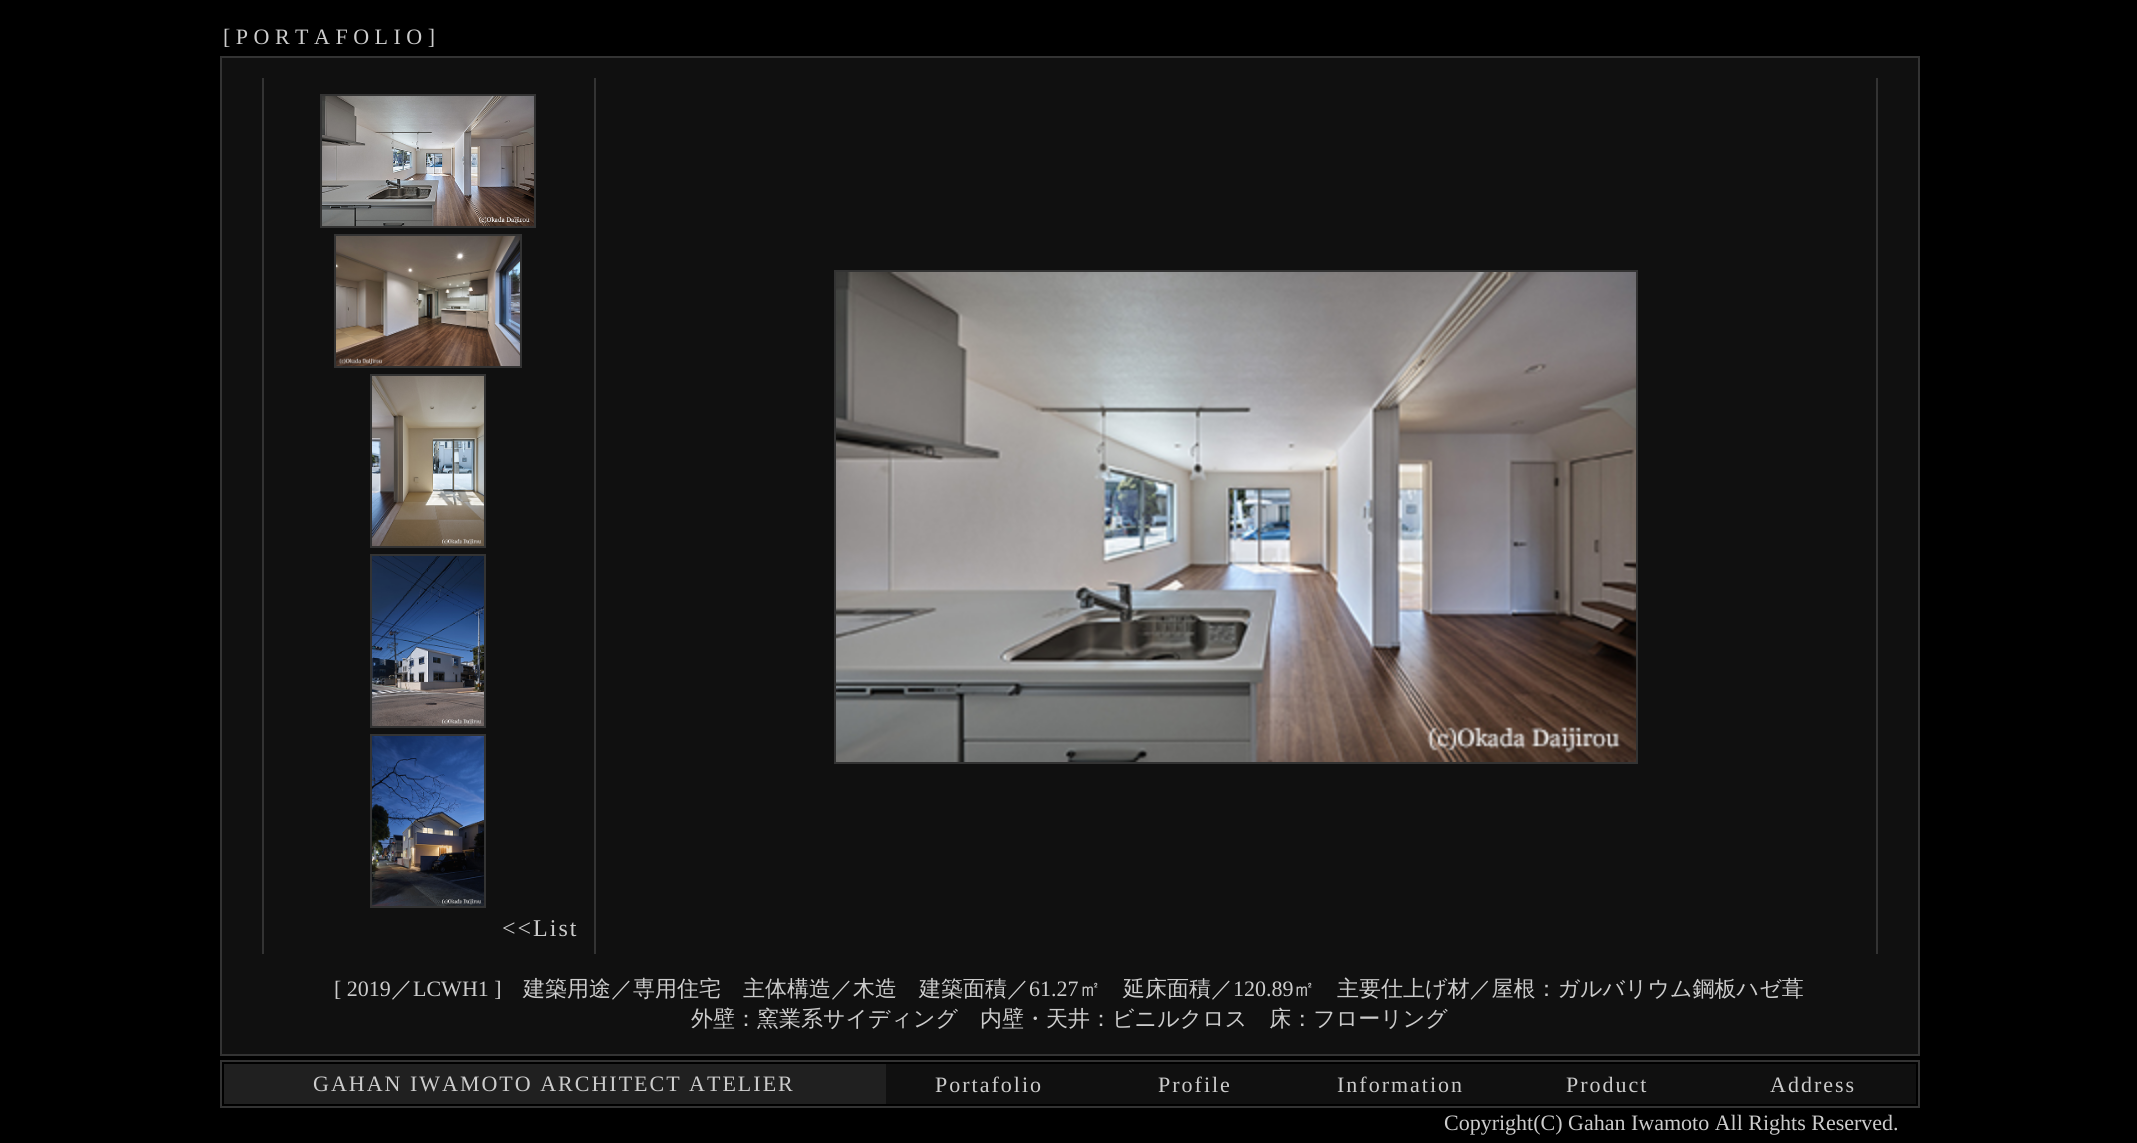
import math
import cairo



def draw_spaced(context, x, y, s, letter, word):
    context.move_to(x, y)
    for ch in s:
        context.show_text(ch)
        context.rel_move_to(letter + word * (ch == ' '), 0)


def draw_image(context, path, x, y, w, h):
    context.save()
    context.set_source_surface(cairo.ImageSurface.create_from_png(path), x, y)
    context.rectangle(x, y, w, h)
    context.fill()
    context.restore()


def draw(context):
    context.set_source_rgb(0, 0, 0)
    context.paint()
    context.set_source_rgb(51 / 255, 51 / 255, 51 / 255)
    context.rectangle(220, 56, 1700, 1000)
    context.fill()
    context.set_source_rgb(16 / 255, 16 / 255, 16 / 255)
    context.rectangle(222, 58, 1696, 996)
    context.fill()
    context.set_source_rgb(51 / 255, 51 / 255, 51 / 255)
    context.rectangle(262, 78, 2, 876)
    context.fill()
    context.rectangle(594, 78, 2, 876)
    context.fill()
    context.rectangle(834, 270, 804, 494)
    context.fill()
    draw_image(context, "images/1.png", 836, 272, 800, 490)
    context.rectangle(1876, 78, 2, 876)
    context.fill()
    context.rectangle(321, 95, 214, 132)
    context.stroke()
    draw_image(context, "images/2.png", 322, 96, 212, 130)
    context.rectangle(335, 235, 186, 132)
    context.stroke()
    draw_image(context, "images/3.png", 336, 236, 184, 130)
    context.rectangle(371, 375, 114, 172)
    context.stroke()
    draw_image(context, "images/4.png", 372, 376, 112, 170)
    context.rectangle(371, 555, 114, 172)
    context.stroke()
    draw_image(context, "images/5.png", 372, 556, 112, 170)
    context.rectangle(371, 735, 114, 172)
    context.stroke()
    draw_image(context, "images/6.png", 372, 736, 112, 170)
    context.rectangle(220, 1060, 1700, 48)
    context.fill()
    context.set_source_rgb(0, 0, 0)
    context.rectangle(222, 1062, 1696, 44)
    context.fill()
    context.set_source_rgb(16 / 255, 16 / 255, 16 / 255)
    context.rectangle(886, 1064, 1030, 40)
    context.fill()
    context.set_source_rgb(32 / 255, 32 / 255, 32 / 255)
    context.rectangle(224, 1064, 662, 40)
    context.fill()
    context.select_font_face("Liberation Serif")
    context.set_font_size(22)
    context.set_source_rgb(204 / 255, 204 / 255, 204 / 255)
    context.move_to(223, 44)
    context.show_text("[ P O R T A F O L I O ]")
    context.set_font_size(24)
    draw_spaced(context, 502, 936, "<<List", 2, 0)
    context.set_font_size(22)
    context.move_to(334, 996)
    context.show_text("[ 2019")
    context.select_font_face("WenQuanYi Zen Hei Medium")
    context.move_to(391, 996)
    context.show_text("／")
    context.select_font_face("Liberation Serif")
    context.move_to(413, 996)
    context.show_text("LCWH1 ]")
    context.select_font_face("WenQuanYi Zen Hei Medium")
    context.move_to(523, 996)
    context.show_text("建築用途／専用住宅　主体構造／木造　建築面積／")
    context.select_font_face("Liberation Serif")
    context.move_to(1029, 996)
    context.show_text("61.27")
    context.select_font_face("WenQuanYi Zen Hei Medium")
    context.move_to(1079, 996)
    context.show_text("㎡　延床面積／")
    context.select_font_face("Liberation Serif")
    context.move_to(1233, 996)
    context.show_text("120.89")
    context.select_font_face("WenQuanYi Zen Hei Medium")
    context.move_to(1293, 996)
    context.show_text("㎡　主要仕上げ材／屋根：ガルバリウム鋼板ハゼ葺")
    context.move_to(691, 1026)
    context.show_text("外壁：窯業系サイディング　内壁・天井：ビニルクロス　床：フローリング")
    context.select_font_face("Liberation Serif")
    draw_spaced(context, 313, 1091, "GAHAN IWAMOTO ARCHITECT ATELIER", 2, 0)
    draw_spaced(context, 935, 1092, "Portafolio", 2, 0)
    draw_spaced(context, 1158, 1092, "Profile", 2, 0)
    draw_spaced(context, 1337, 1092, "Information", 2, 0)
    draw_spaced(context, 1566, 1092, "Product", 2, 0)
    draw_spaced(context, 1770, 1092, "Address", 2, 0)
    context.move_to(1444, 1130)
    context.show_text("Copyright(C) Gahan Iwamoto All Rights Reserved.")


surface = cairo.ImageSurface(cairo.Format.RGB24, 2137, 1143)
context = cairo.Context(surface)
options = cairo.FontOptions()
options.set_hint_metrics(cairo.HintMetrics.OFF)
options.set_hint_style(cairo.HintStyle.NONE)
context.set_font_options(options)
context.set_miter_limit(4)
draw(context)
surface.write_to_png("out.png")
